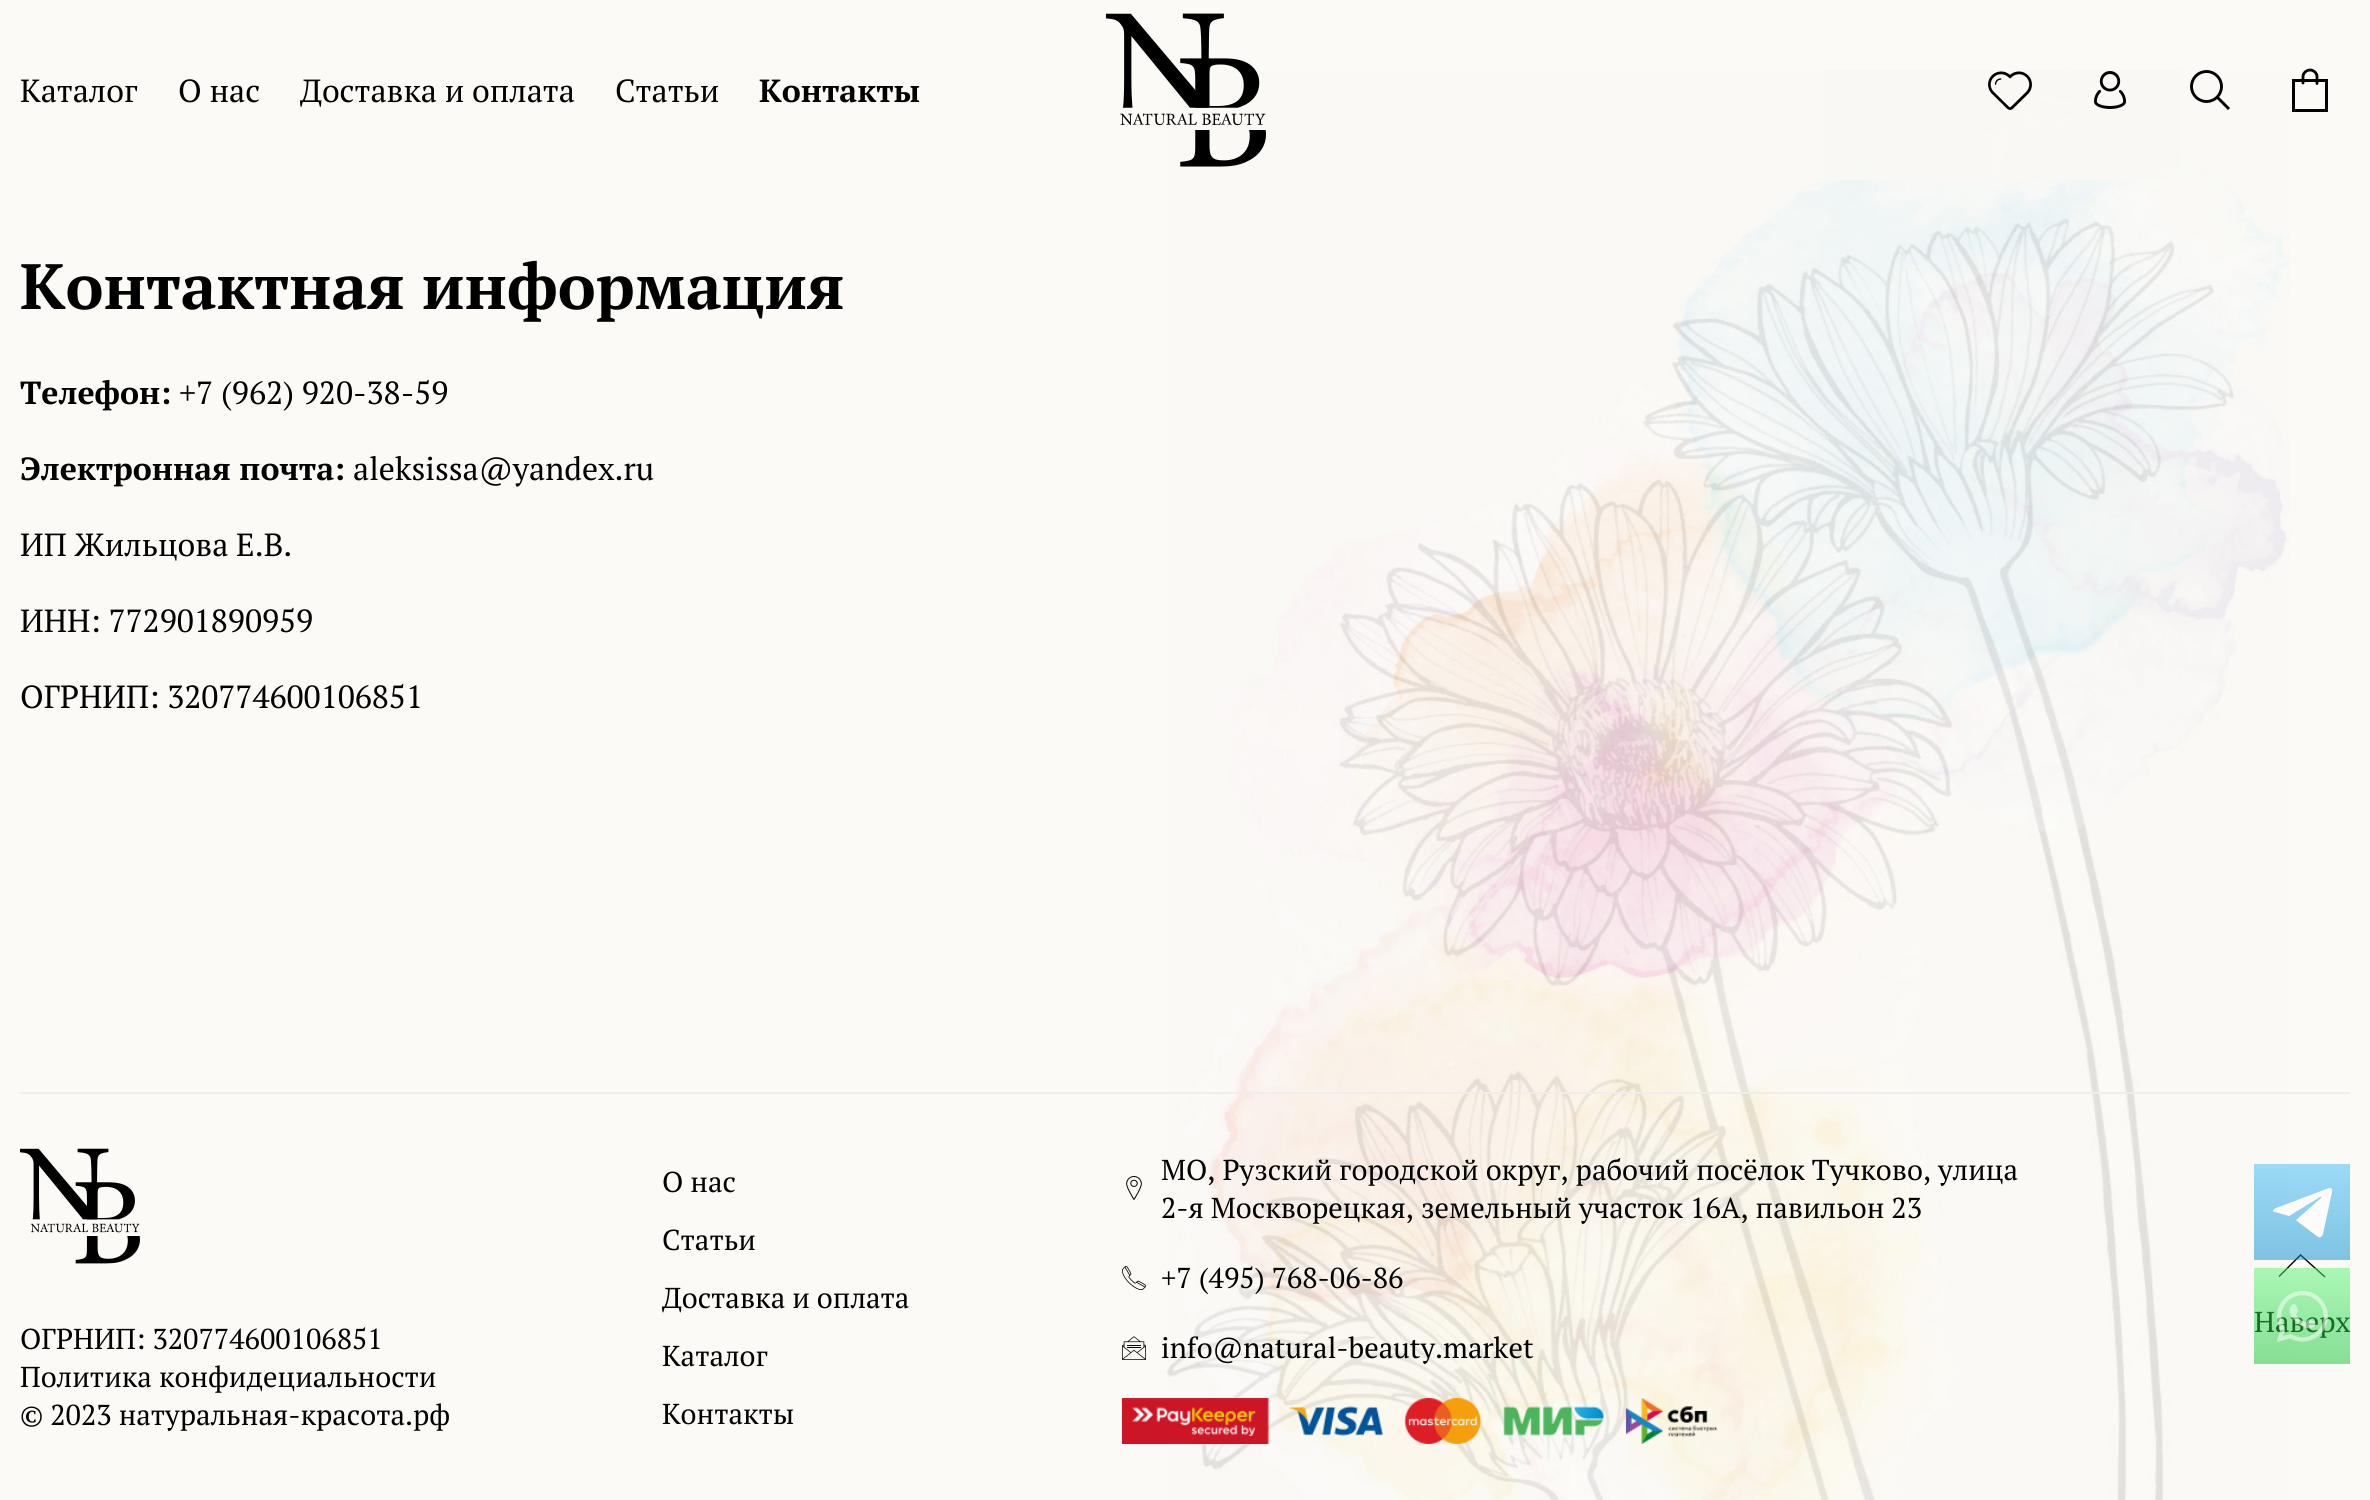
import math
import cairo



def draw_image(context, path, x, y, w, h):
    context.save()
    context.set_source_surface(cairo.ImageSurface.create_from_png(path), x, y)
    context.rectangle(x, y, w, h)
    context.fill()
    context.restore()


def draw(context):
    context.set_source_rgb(251 / 255, 250 / 255, 246 / 255)
    context.paint()
    draw_image(context, "images/1.png", 1167, 70, 1123, 1430)
    context.set_source_rgba(250 / 255, 249 / 255, 245 / 255, 0.9)
    context.rectangle(1823, 70, 357, 110)
    context.fill()
    draw_image(context, "images/2.png", 1106, 13, 160, 154)
    draw_image(context, "images/3.png", 1988, 71, 44, 39)
    draw_image(context, "images/4.png", 2094, 71, 32, 38)
    context.arc(2206.5, 86.5, 15, 0, 2 * math.pi)
    context.set_source_rgb(0, 0, 0)
    context.set_line_width(2.9)
    context.stroke()
    context.new_path()
    context.move_to(2216.5, 96.5)
    context.line_to(2229, 109)
    context.stroke()
    context.rectangle(2293.5, 80.5, 33, 30)
    context.set_line_width(3)
    context.stroke()
    context.new_path()
    context.move_to(2303, 83)
    context.line_to(2303, 76.5)
    context.curve_to(2303, 73, 2306.5, 70, 2310, 70)
    context.curve_to(2313.5, 70, 2317, 73, 2317, 76.5)
    context.line_to(2317, 83.5)
    context.set_line_width(2.8)
    context.set_line_cap(cairo.LineCap.ROUND)
    context.set_line_join(cairo.LineJoin.ROUND)
    context.stroke()
    context.set_source_rgb(238 / 255, 238 / 255, 238 / 255)
    context.rectangle(20, 1092, 2330, 2)
    context.fill()
    draw_image(context, "images/5.png", 20, 1148, 120, 116)
    draw_image(context, "images/6.png", 1126, 1176, 16, 24)
    draw_image(context, "images/7.png", 1122, 1266, 24, 24)
    draw_image(context, "images/8.png", 1122, 1336, 24, 24)
    draw_image(context, "images/9.png", 1122, 1398, 596, 46)
    context.new_path()
    context.move_to(2279, 1276.5)
    context.line_to(2300.5, 1255)
    context.line_to(2325, 1277)
    context.set_source_rgb(0, 0, 0)
    context.set_line_width(1.4)
    context.set_line_cap(cairo.LineCap.BUTT)
    context.set_line_join(cairo.LineJoin.MITER)
    context.stroke()
    gradient = cairo.LinearGradient(2302, 1260, 2302, 1164)
    gradient.add_color_stop_rgba(0, 3 / 255, 141 / 255, 207 / 255, 0.5)
    gradient.add_color_stop_rgba(1, 62 / 255, 187 / 255, 249 / 255, 0.5)
    context.set_source(gradient)
    context.rectangle(2254, 1164, 96, 96)
    context.fill()
    context.set_source_rgb(253 / 255, 252 / 255, 250 / 255)
    context.new_path()
    context.move_to(2329, 1188)
    context.curve_to(2331, 1188, 2333, 1189, 2332, 1192)
    context.line_to(2323, 1234)
    context.curve_to(2322, 1237, 2320, 1238, 2318, 1237)
    context.line_to(2297, 1221)
    context.line_to(2296, 1220)
    context.line_to(2321, 1198)
    context.curve_to(2322, 1197, 2321, 1196, 2320, 1197)
    context.line_to(2289, 1216)
    context.line_to(2275, 1212)
    context.curve_to(2272, 1212, 2272, 1210, 2276, 1208)
    context.close_path()
    context.fill()
    context.select_font_face("PT Serif")
    context.set_font_size(32)
    context.set_source_rgb(0, 0, 0)
    context.move_to(20, 102)
    context.show_text("Каталог")
    context.move_to(178, 102)
    context.show_text("О нас")
    context.move_to(300, 102)
    context.show_text("Доставка и оплата")
    context.move_to(615, 102)
    context.show_text("Статьи")
    context.select_font_face("PT Serif", cairo.FontSlant.NORMAL, cairo.FontWeight.BOLD)
    context.move_to(759, 102)
    context.show_text("Контакты")
    context.set_font_size(64)
    context.move_to(20, 309)
    context.show_text("Контактная информация")
    context.set_font_size(32)
    context.move_to(20, 404)
    context.show_text("Телефон:")
    context.select_font_face("PT Serif")
    context.move_to(179, 404)
    context.show_text("+7 (962) 920-38-59")
    context.select_font_face("PT Serif", cairo.FontSlant.NORMAL, cairo.FontWeight.BOLD)
    context.move_to(20, 480)
    context.show_text("Электронная почта:")
    context.select_font_face("PT Serif")
    context.move_to(353, 480)
    context.show_text("aleksissa@yandex.ru")
    context.move_to(20, 556)
    context.show_text("ИП Жильцова Е.В.")
    context.move_to(20, 632)
    context.show_text("ИНН: 772901890959")
    context.move_to(20, 708)
    context.show_text("ОГРНИП: 320774600106851")
    context.set_font_size(28.8)
    context.move_to(20, 1349)
    context.show_text("ОГРНИП: 320774600106851")
    context.move_to(20, 1387)
    context.show_text("Политика конфидециальности")
    context.move_to(20, 1425)
    context.show_text("© 2023 натуральная-красота.рф")
    context.move_to(662, 1192)
    context.show_text("О нас")
    context.move_to(662, 1250)
    context.show_text("Статьи")
    context.move_to(662, 1308)
    context.show_text("Доставка и оплата")
    context.move_to(662, 1366)
    context.show_text("Каталог")
    context.move_to(662, 1424)
    context.show_text("Контакты")
    context.move_to(1161, 1180)
    context.show_text("МО, Рузский городской округ, рабочий посёлок Тучково, улица")
    context.move_to(1161, 1218)
    context.show_text("2-я Москворецкая, земельный участок 16А, павильон 23")
    context.move_to(1161, 1288)
    context.show_text("+7 (495) 768-06-86")
    context.move_to(1161, 1358)
    context.show_text("info@natural-beauty.market")
    context.move_to(2254, 1332)
    context.show_text("Наверх")
    gradient = cairo.LinearGradient(2302, 1364, 2302, 1268)
    gradient.add_color_stop_rgba(0, 20 / 255, 195 / 255, 50 / 255, 0.5)
    gradient.add_color_stop_rgba(1, 88 / 255, 246 / 255, 115 / 255, 0.5)
    context.set_source(gradient)
    context.rectangle(2254, 1268, 96, 96)
    context.fill()
    draw_image(context, "images/10.png", 2277, 1290, 51, 52)


surface = cairo.ImageSurface(cairo.Format.RGB24, 2370, 1500)
context = cairo.Context(surface)
options = cairo.FontOptions()
options.set_hint_metrics(cairo.HintMetrics.OFF)
options.set_hint_style(cairo.HintStyle.NONE)
context.set_font_options(options)
context.set_miter_limit(4)
draw(context)
surface.write_to_png("out.png")
